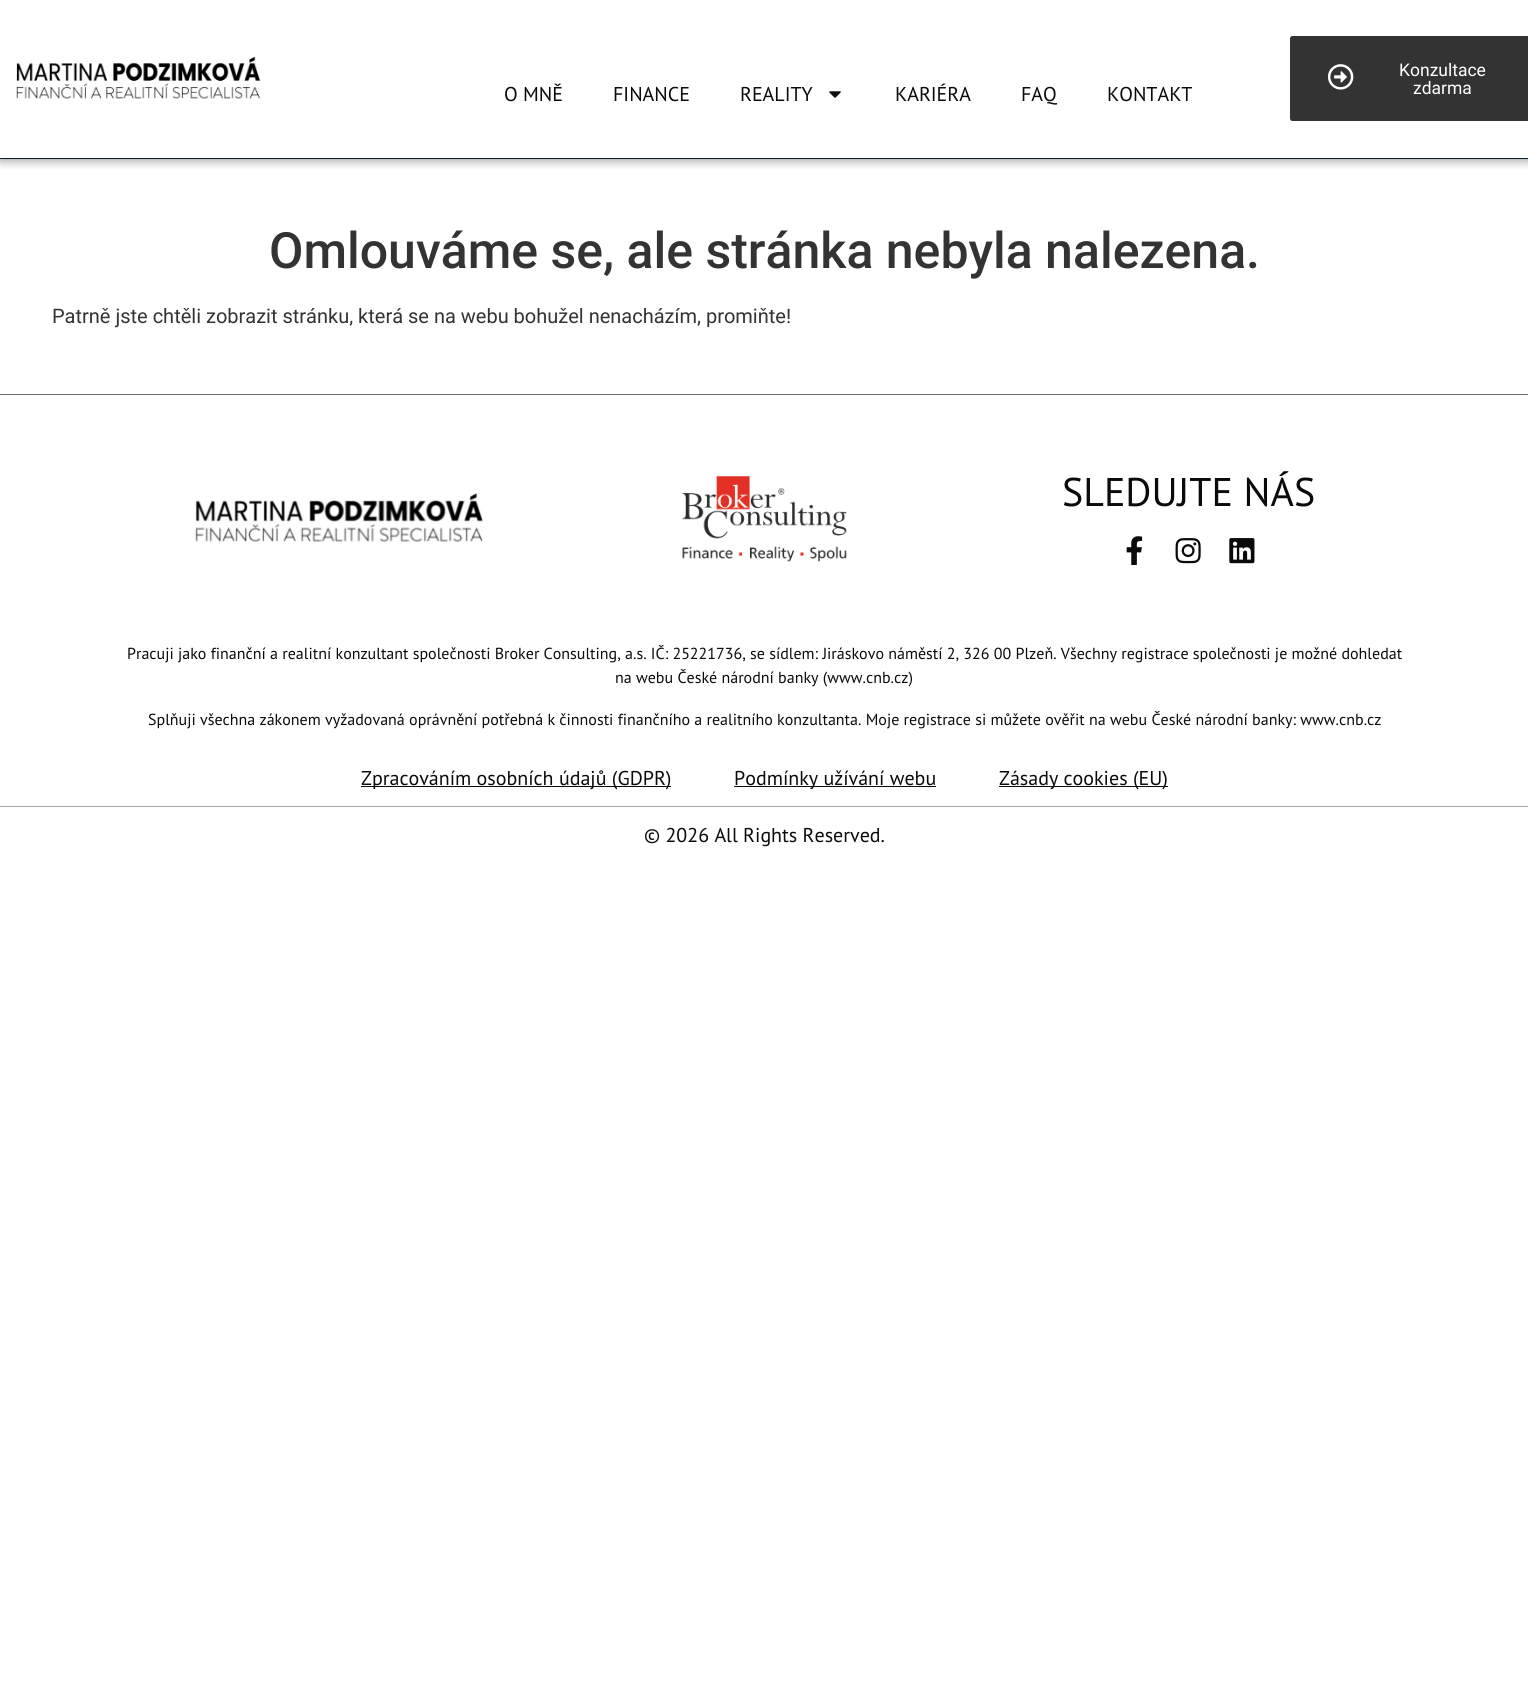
import math
import cairo



def rounded_rect(context, x, y, w, h, r):
    context.new_sub_path()
    for i, (u, v) in enumerate([(x + w - r, y + h - r), (x + r, y + h - r), (x + r, y + r), (x + w - r, y + r)]):
        context.arc(u, v, r, i * math.pi / 2, (i + 1) * math.pi / 2)
    context.close_path()


def draw_shadow(context, x, y, w, h, r, blur, alpha):
    context.push_group_with_content(cairo.Content.ALPHA)
    context.set_operator(cairo.Operator.SOURCE)
    for i in range(15, -16, -2):
        e = blur * i / 6
        if min(w, h) + 2 * e > 0:
            context.set_source_rgba(0, 0, 0, alpha * math.erfc((i - 1) / 8.5) / 2)
            rounded_rect(context, x - e, y - e, w + 2 * e, h + 2 * e, max(0, min(r + e + blur * .6, min(w, h) / 2 + e)))
            context.fill()
    context.mask(context.pop_group())


def draw_image(context, path, x, y, w, h):
    context.save()
    context.set_source_surface(cairo.ImageSurface.create_from_png(path), x, y)
    context.rectangle(x, y, w, h)
    context.fill()
    context.restore()


def draw(context):
    context.set_source_rgb(1, 1, 1)
    context.paint()
    context.save()
    context.rectangle(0, 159, 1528, 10)
    context.clip()
    context.set_source_rgb(0, 0, 0)
    draw_shadow(context, 0, 0, 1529, 159, 0, 6, 0.5)
    context.restore()
    context.set_source_rgb(11 / 255, 33 / 255, 47 / 255)
    context.rectangle(0, 158, 1528, 1)
    context.fill()
    draw_image(context, "images/1.png", 16, 56, 245, 43)
    draw_image(context, "images/2.png", 829, 91, 12, 7)
    context.set_source_rgb(51 / 255, 51 / 255, 51 / 255)
    rounded_rect(context, 1290, 36, 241, 85, 2.5)
    context.fill()
    draw_image(context, "images/3.png", 1328, 64, 26, 26)
    context.set_source_rgb(107 / 255, 107 / 255, 107 / 255)
    context.rectangle(0, 394, 1528, 1)
    context.fill()
    draw_image(context, "images/4.png", 195, 493, 289, 49)
    draw_image(context, "images/5.png", 682, 476, 165, 86)
    draw_image(context, "images/6.png", 1126, 536, 17, 29)
    draw_image(context, "images/7.png", 1175, 538, 26, 26)
    draw_image(context, "images/8.png", 1229, 538, 26, 26)
    context.set_source_rgb(10 / 255, 10 / 255, 10 / 255)
    context.rectangle(361, 786, 310, 1)
    context.fill()
    context.rectangle(734, 786, 202, 1)
    context.fill()
    context.rectangle(999, 786, 169, 1)
    context.fill()
    context.set_source_rgb(165 / 255, 165 / 255, 165 / 255)
    context.rectangle(0, 806, 1528, 1)
    context.fill()
    context.select_font_face("PT Sans")
    context.set_font_size(20)
    context.set_source_rgb(10 / 255, 10 / 255, 10 / 255)
    context.move_to(504, 101)
    context.show_text("O MNĚ")
    context.move_to(613, 101)
    context.show_text("FINANCE")
    context.move_to(740, 101)
    context.show_text("REALITY")
    context.move_to(895, 101)
    context.show_text("KARIÉRA")
    context.move_to(1021, 101)
    context.show_text("FAQ")
    context.move_to(1107, 101)
    context.show_text("KONTAKT")
    context.select_font_face("Roboto")
    context.set_font_size(17.5)
    context.set_source_rgb(1, 1, 1)
    context.move_to(1399, 76)
    context.show_text("Konzultace")
    context.move_to(1413, 94)
    context.show_text("zdarma")
    context.select_font_face("Roboto Medium")
    context.set_font_size(50)
    context.set_source_rgb(51 / 255, 51 / 255, 51 / 255)
    context.move_to(269, 268)
    context.show_text("Omlouváme se, ale stránka nebyla nalezena.")
    context.select_font_face("Roboto")
    context.set_font_size(20)
    context.move_to(52, 323)
    context.show_text("Patrně jste chtěli zobrazit stránku, která se na webu bohužel nenacházím, promiňte!")
    context.select_font_face("PT Sans")
    context.set_font_size(40)
    context.set_source_rgb(10 / 255, 10 / 255, 10 / 255)
    context.move_to(1062, 506)
    context.show_text("SLEDUJTE NÁS")
    context.set_font_size(16)
    context.move_to(127, 659)
    context.show_text("Pracuji jako finanční a realitní konzultant společnosti Broker Consulting, a.s. IČ: 25221736, se sídlem: Jiráskovo náměstí 2, 326 00 Plzeň. Všechny registrace společnosti je možné dohledat")
    context.move_to(615, 683)
    context.show_text("na webu České národní banky (www.cnb.cz)")
    context.move_to(148, 725)
    context.show_text("Splňuji všechna zákonem vyžadovaná oprávnění potřebná k činnosti finančního a realitního konzultanta. Moje registrace si můžete ověřit na webu České národní banky: www.cnb.cz")
    context.set_font_size(20)
    context.move_to(361, 785)
    context.show_text("Zpracováním osobních údajů (GDPR)")
    context.move_to(734, 785)
    context.show_text("Podmínky užívání webu")
    context.move_to(999, 785)
    context.show_text("Zásady cookies (EU)")
    context.move_to(644, 842)
    context.show_text("© 2026 All Rights Reserved.")


surface = cairo.ImageSurface(cairo.Format.RGB24, 1528, 1698)
context = cairo.Context(surface)
options = cairo.FontOptions()
options.set_hint_metrics(cairo.HintMetrics.OFF)
options.set_hint_style(cairo.HintStyle.NONE)
context.set_font_options(options)
context.set_miter_limit(4)
draw(context)
surface.write_to_png("out.png")
